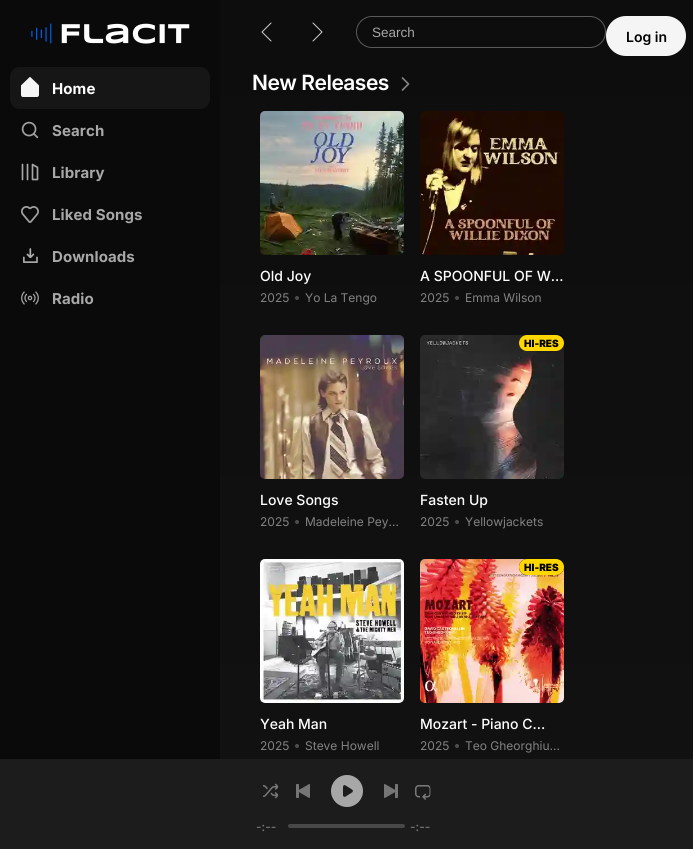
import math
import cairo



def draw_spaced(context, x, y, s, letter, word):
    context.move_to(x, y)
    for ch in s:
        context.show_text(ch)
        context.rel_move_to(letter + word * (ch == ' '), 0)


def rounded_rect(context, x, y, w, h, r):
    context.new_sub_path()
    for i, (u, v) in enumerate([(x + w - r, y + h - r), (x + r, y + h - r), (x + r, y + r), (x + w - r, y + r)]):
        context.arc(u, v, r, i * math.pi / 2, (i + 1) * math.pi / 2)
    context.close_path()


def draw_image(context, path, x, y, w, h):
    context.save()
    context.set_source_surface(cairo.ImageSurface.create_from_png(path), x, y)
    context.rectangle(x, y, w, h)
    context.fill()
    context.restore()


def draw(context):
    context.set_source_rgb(1, 1, 1)
    context.paint()
    gradient = cairo.LinearGradient(456, 0, 457, 759)
    gradient.add_color_stop_rgba(0, 13 / 255, 13 / 255, 13 / 255, 1)
    gradient.add_color_stop_rgba(1, 17 / 255, 17 / 255, 17 / 255, 1)
    context.set_source(gradient)
    context.rectangle(220, 0, 473, 759)
    context.fill()
    context.new_path()
    context.move_to(271, 23)
    context.line_to(262, 32)
    context.line_to(271, 41)
    context.set_source_rgb(207 / 255, 207 / 255, 207 / 255)
    context.set_line_width(1)
    context.set_line_cap(cairo.LineCap.ROUND)
    context.set_line_join(cairo.LineJoin.ROUND)
    context.stroke()
    draw_image(context, "images/1.png", 312, 22, 11, 20)
    rounded_rect(context, 356.5, 16.5, 249, 31, 15.5)
    context.set_source_rgb(90 / 255, 90 / 255, 90 / 255)
    context.set_line_cap(cairo.LineCap.BUTT)
    context.set_line_join(cairo.LineJoin.MITER)
    context.stroke()
    context.set_source_rgb(245 / 255, 245 / 255, 245 / 255)
    rounded_rect(context, 606, 16, 80, 40, 20)
    context.fill()
    context.set_source_rgb(10 / 255, 10 / 255, 10 / 255)
    context.rectangle(0, 0, 220, 759)
    context.fill()
    draw_image(context, "images/2.png", 31, 23, 159, 21)
    context.set_source_rgb(22 / 255, 22 / 255, 22 / 255)
    rounded_rect(context, 10, 67, 200, 42, 10)
    context.fill()
    draw_image(context, "images/3.png", 21, 77, 18, 20)
    draw_image(context, "images/4.png", 21, 121, 18, 18)
    draw_image(context, "images/5.png", 21, 163, 18, 18)
    draw_image(context, "images/6.png", 21, 206, 18, 17)
    draw_image(context, "images/7.png", 23, 248, 15, 15)
    draw_image(context, "images/8.png", 21, 291, 18, 14)
    context.new_path()
    context.move_to(402.5, 90)
    context.line_to(408.5, 84)
    context.line_to(402.5, 78)
    context.set_source_rgb(129 / 255, 129 / 255, 129 / 255)
    context.set_line_width(1.7)
    context.set_line_cap(cairo.LineCap.ROUND)
    context.set_line_join(cairo.LineJoin.ROUND)
    context.stroke()
    draw_image(context, "images/9.png", 260, 111, 144, 144)
    context.set_source_rgb(77 / 255, 77 / 255, 77 / 255)
    context.arc(297, 298, 2, 0, 2 * math.pi)
    context.fill()
    draw_image(context, "images/10.png", 420, 111, 144, 144)
    context.arc(457, 298, 2, 0, 2 * math.pi)
    context.fill()
    draw_image(context, "images/11.png", 260, 335, 144, 144)
    context.arc(297, 522, 2, 0, 2 * math.pi)
    context.fill()
    draw_image(context, "images/12.png", 420, 335, 144, 144)
    context.set_source_rgb(0, 0, 0)
    context.new_path()
    context.move_to(527, 335)
    context.line_to(560, 335)
    context.curve_to(562, 335, 564, 337, 564, 339)
    context.line_to(564, 343)
    context.curve_to(564, 347.5, 560.5, 351, 556, 351)
    context.line_to(527, 351)
    context.curve_to(522.5, 351, 519, 347.5, 519, 343)
    context.curve_to(519, 338.5, 522.5, 335, 527, 335)
    context.close_path()
    context.fill()
    context.save()
    context.new_path()
    context.move_to(527, 335)
    context.line_to(560, 335)
    context.curve_to(562, 335, 564, 337, 564, 339)
    context.line_to(564, 343)
    context.curve_to(564, 347.5, 560.5, 351, 556, 351)
    context.line_to(527, 351)
    context.curve_to(522.5, 351, 519, 347.5, 519, 343)
    context.curve_to(519, 338.5, 522.5, 335, 527, 335)
    context.close_path()
    context.clip()
    context.set_source_rgb(1, 215 / 255, 0)
    rounded_rect(context, 519, 335, 45, 16, 8)
    context.fill()
    context.restore()
    context.set_source_rgb(77 / 255, 77 / 255, 77 / 255)
    context.arc(457, 522, 2, 0, 2 * math.pi)
    context.fill()
    draw_image(context, "images/13.png", 260, 559, 144, 144)
    context.set_source_rgb(78 / 255, 78 / 255, 78 / 255)
    context.arc(297, 746, 2, 0, 2 * math.pi)
    context.fill()
    draw_image(context, "images/14.png", 420, 559, 144, 144)
    context.set_source_rgb(0, 0, 0)
    context.new_path()
    context.move_to(527, 559)
    context.line_to(560, 559)
    context.curve_to(562, 559, 564, 561, 564, 563)
    context.line_to(564, 567)
    context.curve_to(564, 571.5, 560.5, 575, 556, 575)
    context.line_to(527, 575)
    context.curve_to(522.5, 575, 519, 571.5, 519, 567)
    context.curve_to(519, 562.5, 522.5, 559, 527, 559)
    context.close_path()
    context.fill()
    context.save()
    context.new_path()
    context.move_to(527, 559)
    context.line_to(560, 559)
    context.curve_to(562, 559, 564, 561, 564, 563)
    context.line_to(564, 567)
    context.curve_to(564, 571.5, 560.5, 575, 556, 575)
    context.line_to(527, 575)
    context.curve_to(522.5, 575, 519, 571.5, 519, 567)
    context.curve_to(519, 562.5, 522.5, 559, 527, 559)
    context.close_path()
    context.clip()
    context.set_source_rgb(1, 215 / 255, 0)
    rounded_rect(context, 519, 559, 45, 16, 8)
    context.fill()
    context.restore()
    context.set_source_rgb(78 / 255, 78 / 255, 78 / 255)
    context.arc(457, 746, 2, 0, 2 * math.pi)
    context.fill()
    context.set_source_rgb(28 / 255, 28 / 255, 28 / 255)
    context.rectangle(0, 759, 693, 90)
    context.fill()
    draw_image(context, "images/15.png", 263, 783, 16, 16)
    draw_image(context, "images/16.png", 296, 784, 14, 14)
    draw_image(context, "images/17.png", 331, 775, 32, 32)
    draw_image(context, "images/18.png", 384, 784, 14, 14)
    draw_image(context, "images/19.png", 415, 785, 16, 15)
    context.set_source_rgb(72 / 255, 72 / 255, 72 / 255)
    rounded_rect(context, 288, 824, 117, 4, 2)
    context.fill()
    context.select_font_face("Liberation Sans")
    context.set_font_size(13.5)
    context.set_source_rgb(168 / 255, 168 / 255, 168 / 255)
    context.move_to(372, 37)
    context.show_text("Search")
    context.select_font_face("Inter SemiBold")
    context.set_font_size(14)
    context.set_source_rgb(0, 0, 0)
    context.move_to(626, 42)
    context.show_text("Log in")
    context.select_font_face("Inter", cairo.FontSlant.NORMAL, cairo.FontWeight.BOLD)
    context.set_font_size(15)
    context.set_source_rgb(1, 1, 1)
    draw_spaced(context, 52, 94, "Home", 0.1, 0)
    context.set_source_rgb(168 / 255, 168 / 255, 168 / 255)
    draw_spaced(context, 52, 136, "Search", 0.1, 0)
    draw_spaced(context, 52, 178, "Library", 0.1, 0)
    draw_spaced(context, 52, 220, "Liked Songs", 0.1, 0)
    draw_spaced(context, 52, 262, "Downloads", 0.1, 0)
    draw_spaced(context, 52, 304, "Radio", 0.1, 0)
    context.select_font_face("Inter SemiBold")
    context.set_font_size(21)
    context.set_source_rgb(1, 1, 1)
    draw_spaced(context, 252, 90, "New Releases", -0.5, 0)
    context.select_font_face("Inter Medium")
    context.set_font_size(14)
    context.move_to(260, 281)
    context.show_text("Old Joy")
    context.select_font_face("Inter")
    context.set_font_size(12)
    context.set_source_rgb(130 / 255, 130 / 255, 130 / 255)
    context.move_to(260, 302)
    context.show_text("2025")
    context.move_to(305, 302)
    context.show_text("Yo La Tengo")
    context.select_font_face("Inter Medium")
    context.set_font_size(14)
    context.set_source_rgb(1, 1, 1)
    context.move_to(420, 281)
    context.show_text("A SPOONFUL OF W…")
    context.select_font_face("Inter")
    context.set_font_size(12)
    context.set_source_rgb(130 / 255, 130 / 255, 130 / 255)
    context.move_to(420, 302)
    context.show_text("2025")
    context.move_to(465, 302)
    context.show_text("Emma Wilson")
    context.select_font_face("Inter Medium")
    context.set_font_size(14)
    context.set_source_rgb(1, 1, 1)
    context.move_to(260, 505)
    context.show_text("Love Songs")
    context.select_font_face("Inter")
    context.set_font_size(12)
    context.set_source_rgb(130 / 255, 130 / 255, 130 / 255)
    context.move_to(260, 526)
    context.show_text("2025")
    context.move_to(305, 526)
    context.show_text("Madeleine Pey...")
    context.select_font_face("Inter Black")
    context.set_font_size(10)
    context.set_source_rgb(0, 0, 0)
    context.move_to(524, 347)
    context.show_text("HI-RES")
    context.select_font_face("Inter Medium")
    context.set_font_size(14)
    context.set_source_rgb(1, 1, 1)
    context.move_to(420, 505)
    context.show_text("Fasten Up")
    context.select_font_face("Inter")
    context.set_font_size(12)
    context.set_source_rgb(130 / 255, 130 / 255, 130 / 255)
    context.move_to(420, 526)
    context.show_text("2025")
    context.move_to(465, 526)
    context.show_text("Yellowjackets")
    context.select_font_face("Inter Medium")
    context.set_font_size(14)
    context.set_source_rgb(1, 1, 1)
    context.move_to(260, 729)
    context.show_text("Yeah Man")
    context.select_font_face("Inter")
    context.set_font_size(12)
    context.set_source_rgb(130 / 255, 130 / 255, 130 / 255)
    context.move_to(260, 750)
    context.show_text("2025")
    context.move_to(305, 750)
    context.show_text("Steve Howell")
    context.select_font_face("Inter Black")
    context.set_font_size(10)
    context.set_source_rgb(0, 0, 0)
    context.move_to(524, 571)
    context.show_text("HI-RES")
    context.select_font_face("Inter Medium")
    context.set_font_size(14)
    context.set_source_rgb(1, 1, 1)
    context.move_to(420, 729)
    context.show_text("Mozart - Piano C...")
    context.select_font_face("Inter")
    context.set_font_size(12)
    context.set_source_rgb(130 / 255, 130 / 255, 130 / 255)
    context.move_to(420, 750)
    context.show_text("2025")
    context.move_to(465, 750)
    context.show_text("Teo Gheorghiu...")
    context.select_font_face("Inter Medium")
    context.set_source_rgb(121 / 255, 121 / 255, 121 / 255)
    context.move_to(256, 831)
    context.show_text("-:--")
    context.move_to(410, 831)
    context.show_text("-:--")


surface = cairo.ImageSurface(cairo.Format.RGB24, 693, 849)
context = cairo.Context(surface)
options = cairo.FontOptions()
options.set_hint_metrics(cairo.HintMetrics.OFF)
options.set_hint_style(cairo.HintStyle.NONE)
context.set_font_options(options)
context.set_miter_limit(4)
draw(context)
surface.write_to_png("out.png")
